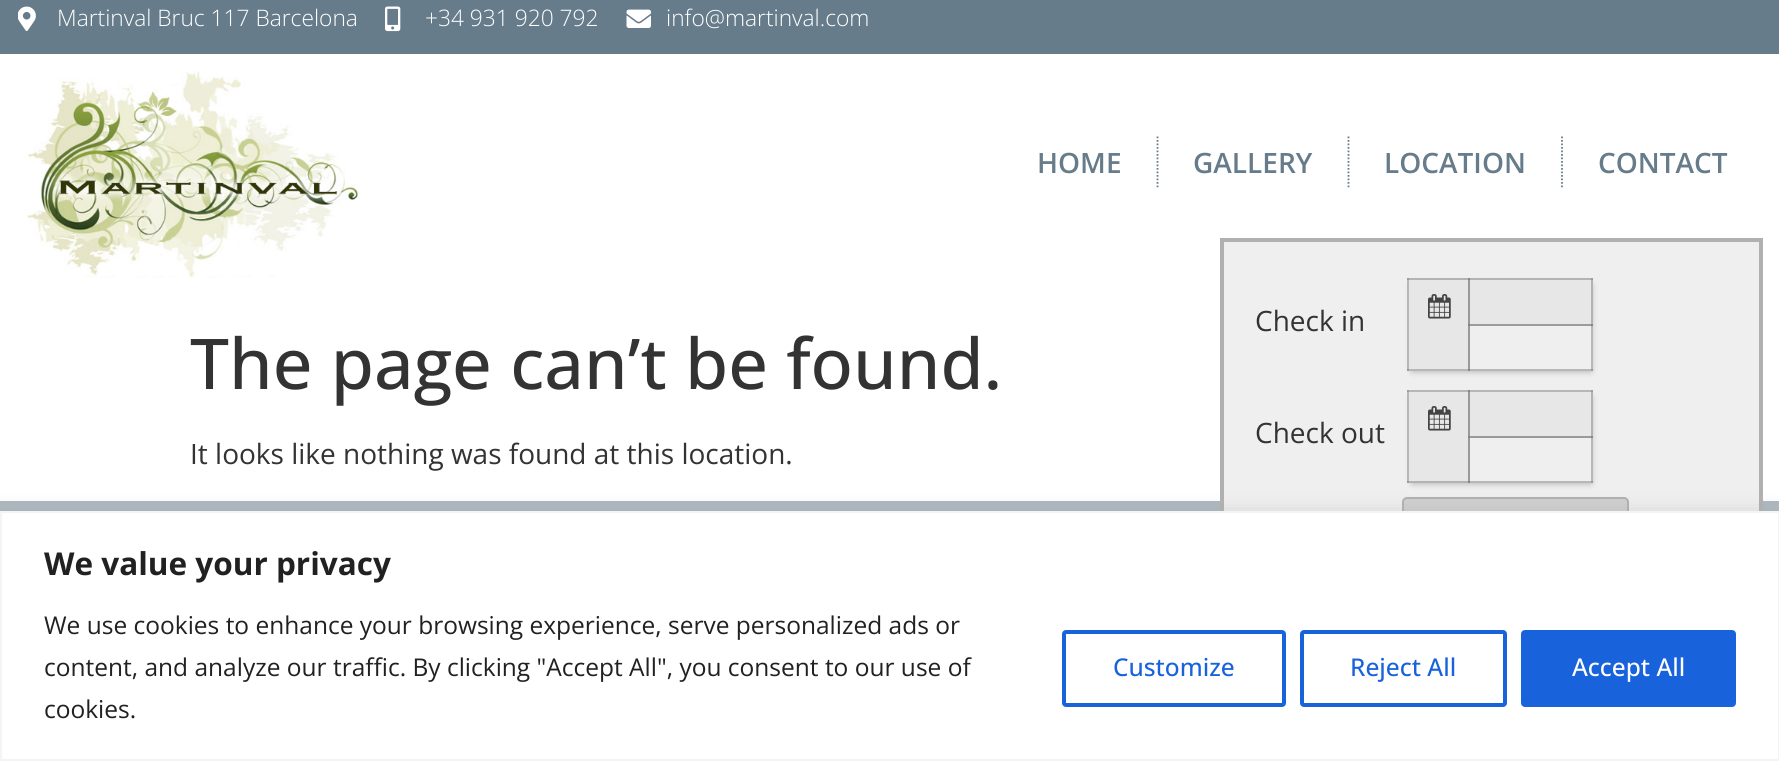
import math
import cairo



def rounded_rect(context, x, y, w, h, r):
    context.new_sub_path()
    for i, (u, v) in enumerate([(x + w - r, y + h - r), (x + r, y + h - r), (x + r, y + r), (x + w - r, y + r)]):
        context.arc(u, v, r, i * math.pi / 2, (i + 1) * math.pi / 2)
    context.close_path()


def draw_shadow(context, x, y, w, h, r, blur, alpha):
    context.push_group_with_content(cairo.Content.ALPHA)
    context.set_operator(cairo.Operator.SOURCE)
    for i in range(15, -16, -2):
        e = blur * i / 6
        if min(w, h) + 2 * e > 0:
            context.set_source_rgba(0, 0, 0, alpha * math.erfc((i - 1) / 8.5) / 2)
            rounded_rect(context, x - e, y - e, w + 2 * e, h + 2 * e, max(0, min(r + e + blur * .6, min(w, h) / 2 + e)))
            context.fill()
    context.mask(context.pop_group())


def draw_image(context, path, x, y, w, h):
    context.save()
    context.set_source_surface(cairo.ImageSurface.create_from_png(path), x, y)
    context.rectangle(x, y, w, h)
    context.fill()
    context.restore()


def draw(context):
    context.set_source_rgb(1, 1, 1)
    context.paint()
    context.set_source_rgb(103 / 255, 124 / 255, 139 / 255)
    context.rectangle(0, 0, 1779, 54)
    context.fill()
    draw_image(context, "images/1.png", 18, 6, 18, 25)
    draw_image(context, "images/2.png", 385, 6, 16, 26)
    draw_image(context, "images/3.png", 626, 9, 25, 19)
    draw_image(context, "images/4.png", 27, 71, 331, 207)
    context.new_path()
    context.move_to(1157.5, 136.5)
    context.line_to(1157.5, 189)
    context.set_line_width(1.8)
    context.set_dash([1.75, 1.75])
    context.stroke()
    context.new_path()
    context.move_to(1348.5, 136.5)
    context.line_to(1348.5, 189)
    context.stroke()
    context.new_path()
    context.move_to(1562, 136.5)
    context.line_to(1562, 189)
    context.stroke()
    context.set_source_rgb(171 / 255, 183 / 255, 191 / 255)
    context.rectangle(0, 501, 1779, 10)
    context.fill()
    context.set_source_rgb(239 / 255, 239 / 255, 239 / 255)
    context.rectangle(1224, 242, 535, 269)
    context.fill()
    context.set_source_rgb(176 / 255, 176 / 255, 176 / 255)
    context.rectangle(1220, 238, 542, 4)
    context.fill()
    context.rectangle(1759, 238, 4, 273)
    context.fill()
    context.rectangle(1220, 238, 4, 273)
    context.fill()
    context.save()
    context.set_fill_rule(cairo.FillRule.EVEN_ODD)
    context.new_path()
    context.move_to(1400, 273)
    context.line_to(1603, 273)
    context.line_to(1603, 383)
    context.line_to(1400, 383)
    context.close_path()
    context.move_to(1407, 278)
    context.line_to(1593, 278)
    context.line_to(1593, 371)
    context.line_to(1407, 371)
    context.close_path()
    context.clip()
    context.set_source_rgb(0, 0, 0)
    draw_shadow(context, 1412, 285, 179, 86, 0, 3.5, 0.3)
    context.restore()
    context.set_source_rgb(231 / 255, 231 / 255, 231 / 255)
    context.rectangle(1409, 278, 61, 91)
    context.fill()
    context.set_source_rgb(180 / 255, 180 / 255, 180 / 255)
    context.rectangle(1468, 278, 125, 2)
    context.fill()
    context.set_source_rgba(128 / 255, 128 / 255, 128 / 255, 0.07)
    context.rectangle(1470, 280, 123, 44)
    context.fill()
    context.set_source_rgba(128 / 255, 128 / 255, 128 / 255, 0.5)
    context.rectangle(1468, 324, 125, 2)
    context.fill()
    context.rectangle(1591, 324, 2, 47)
    context.fill()
    context.rectangle(1591, 278, 2, 48)
    context.fill()
    context.rectangle(1468, 369, 125, 2)
    context.fill()
    context.rectangle(1468, 324, 2, 47)
    context.fill()
    context.rectangle(1468, 324, 125, 2)
    context.fill()
    context.rectangle(1468, 278, 2, 48)
    context.fill()
    context.rectangle(1407, 278, 63, 2)
    context.fill()
    context.rectangle(1468, 278, 2, 93)
    context.fill()
    context.rectangle(1407, 369, 63, 2)
    context.fill()
    context.rectangle(1407, 278, 2, 93)
    context.fill()
    draw_image(context, "images/5.png", 1428, 294, 23, 25)
    context.save()
    context.set_fill_rule(cairo.FillRule.EVEN_ODD)
    context.new_path()
    context.move_to(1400, 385)
    context.line_to(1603, 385)
    context.line_to(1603, 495)
    context.line_to(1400, 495)
    context.close_path()
    context.move_to(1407, 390)
    context.line_to(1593, 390)
    context.line_to(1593, 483)
    context.line_to(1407, 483)
    context.close_path()
    context.clip()
    context.set_source_rgb(0, 0, 0)
    draw_shadow(context, 1412, 397, 179, 86, 0, 3.5, 0.3)
    context.restore()
    context.set_source_rgb(231 / 255, 231 / 255, 231 / 255)
    context.rectangle(1409, 392, 61, 91)
    context.fill()
    context.set_source_rgb(183 / 255, 183 / 255, 183 / 255)
    context.rectangle(1468, 390, 125, 2)
    context.fill()
    context.set_source_rgba(128 / 255, 128 / 255, 128 / 255, 0.07)
    context.rectangle(1470, 392, 123, 46)
    context.fill()
    context.set_source_rgba(128 / 255, 128 / 255, 128 / 255, 0.5)
    context.rectangle(1468, 436, 125, 2)
    context.fill()
    context.rectangle(1591, 436, 2, 47)
    context.fill()
    context.rectangle(1591, 390, 2, 48)
    context.fill()
    context.rectangle(1468, 481, 125, 2)
    context.fill()
    context.rectangle(1468, 436, 2, 47)
    context.fill()
    context.rectangle(1468, 436, 125, 2)
    context.fill()
    context.rectangle(1468, 390, 2, 48)
    context.fill()
    context.rectangle(1407, 390, 63, 2)
    context.fill()
    context.rectangle(1468, 390, 2, 93)
    context.fill()
    context.rectangle(1407, 481, 63, 2)
    context.fill()
    context.rectangle(1407, 390, 2, 93)
    context.fill()
    draw_image(context, "images/5.png", 1428, 406, 23, 25)
    context.set_source_rgb(207 / 255, 207 / 255, 207 / 255)
    rounded_rect(context, 1403, 498, 225, 54, 4)
    context.fill_preserve()
    context.set_source_rgb(176 / 255, 176 / 255, 176 / 255)
    context.set_line_width(2)
    context.set_dash([])
    context.stroke()
    context.set_source_rgb(172 / 255, 171 / 255, 171 / 255)
    draw_shadow(context, 0, 509, 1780, 251, 0, 9, 0.3)
    context.set_source_rgb(1, 1, 1)
    context.rectangle(1, 512, 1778, 248)
    context.fill_preserve()
    context.set_source_rgb(244 / 255, 244 / 255, 244 / 255)
    context.stroke()
    rounded_rect(context, 1064, 632, 220, 73, 2)
    context.set_source_rgb(24 / 255, 99 / 255, 220 / 255)
    context.set_line_width(4)
    context.stroke()
    rounded_rect(context, 1302, 632, 203, 73, 2)
    context.stroke()
    rounded_rect(context, 1523, 632, 211, 73, 2)
    context.fill_preserve()
    context.stroke()
    context.select_font_face("Open Sans Light")
    context.set_font_size(22.75)
    context.set_source_rgb(1, 1, 1)
    context.move_to(57, 26)
    context.show_text("Martinval Bruc 117 Barcelona")
    context.move_to(425, 26)
    context.show_text("+34 931 920 792")
    context.move_to(666, 26)
    context.show_text("info@martinval.com")
    context.select_font_face("Open Sans SemiBold")
    context.set_font_size(28)
    context.set_source_rgb(103 / 255, 124 / 255, 139 / 255)
    context.move_to(1037, 173)
    context.show_text("HOME")
    context.move_to(1193, 173)
    context.show_text("GALLERY")
    context.move_to(1384, 173)
    context.show_text("LOCATION")
    context.move_to(1598, 173)
    context.show_text("CONTACT")
    context.select_font_face("Open Sans")
    context.set_source_rgb(51 / 255, 51 / 255, 51 / 255)
    context.move_to(1255, 331)
    context.show_text("Check in")
    context.move_to(1255, 443)
    context.show_text("Check out")
    context.select_font_face("Open Sans Medium")
    context.set_font_size(70)
    context.move_to(190, 389)
    context.show_text("The page can’t be found.")
    context.select_font_face("Open Sans")
    context.set_font_size(28)
    context.move_to(190, 464)
    context.show_text("It looks like nothing was found at this location.")
    context.select_font_face("Open Sans", cairo.FontSlant.NORMAL, cairo.FontWeight.BOLD)
    context.set_font_size(31.5)
    context.set_source_rgb(33 / 255, 33 / 255, 33 / 255)
    context.move_to(44, 575)
    context.show_text("We value your privacy")
    context.select_font_face("Open Sans")
    context.set_font_size(24.5)
    context.move_to(44, 634)
    context.show_text("We use cookies to enhance your browsing experience, serve personalized ads or")
    context.move_to(44, 676)
    context.show_text("content, and analyze our traffic. By clicking \"Accept All\", you consent to our use of")
    context.move_to(44, 718)
    context.show_text("cookies.")
    context.select_font_face("Open Sans Medium")
    context.set_source_rgb(24 / 255, 99 / 255, 220 / 255)
    context.move_to(1113, 676)
    context.show_text("Customize")
    context.move_to(1350, 676)
    context.show_text("Reject All")
    context.set_source_rgb(1, 1, 1)
    context.move_to(1572, 676)
    context.show_text("Accept All")


surface = cairo.ImageSurface(cairo.Format.RGB24, 1779, 761)
context = cairo.Context(surface)
options = cairo.FontOptions()
options.set_hint_metrics(cairo.HintMetrics.OFF)
options.set_hint_style(cairo.HintStyle.NONE)
context.set_font_options(options)
context.set_miter_limit(4)
draw(context)
surface.write_to_png("out.png")
